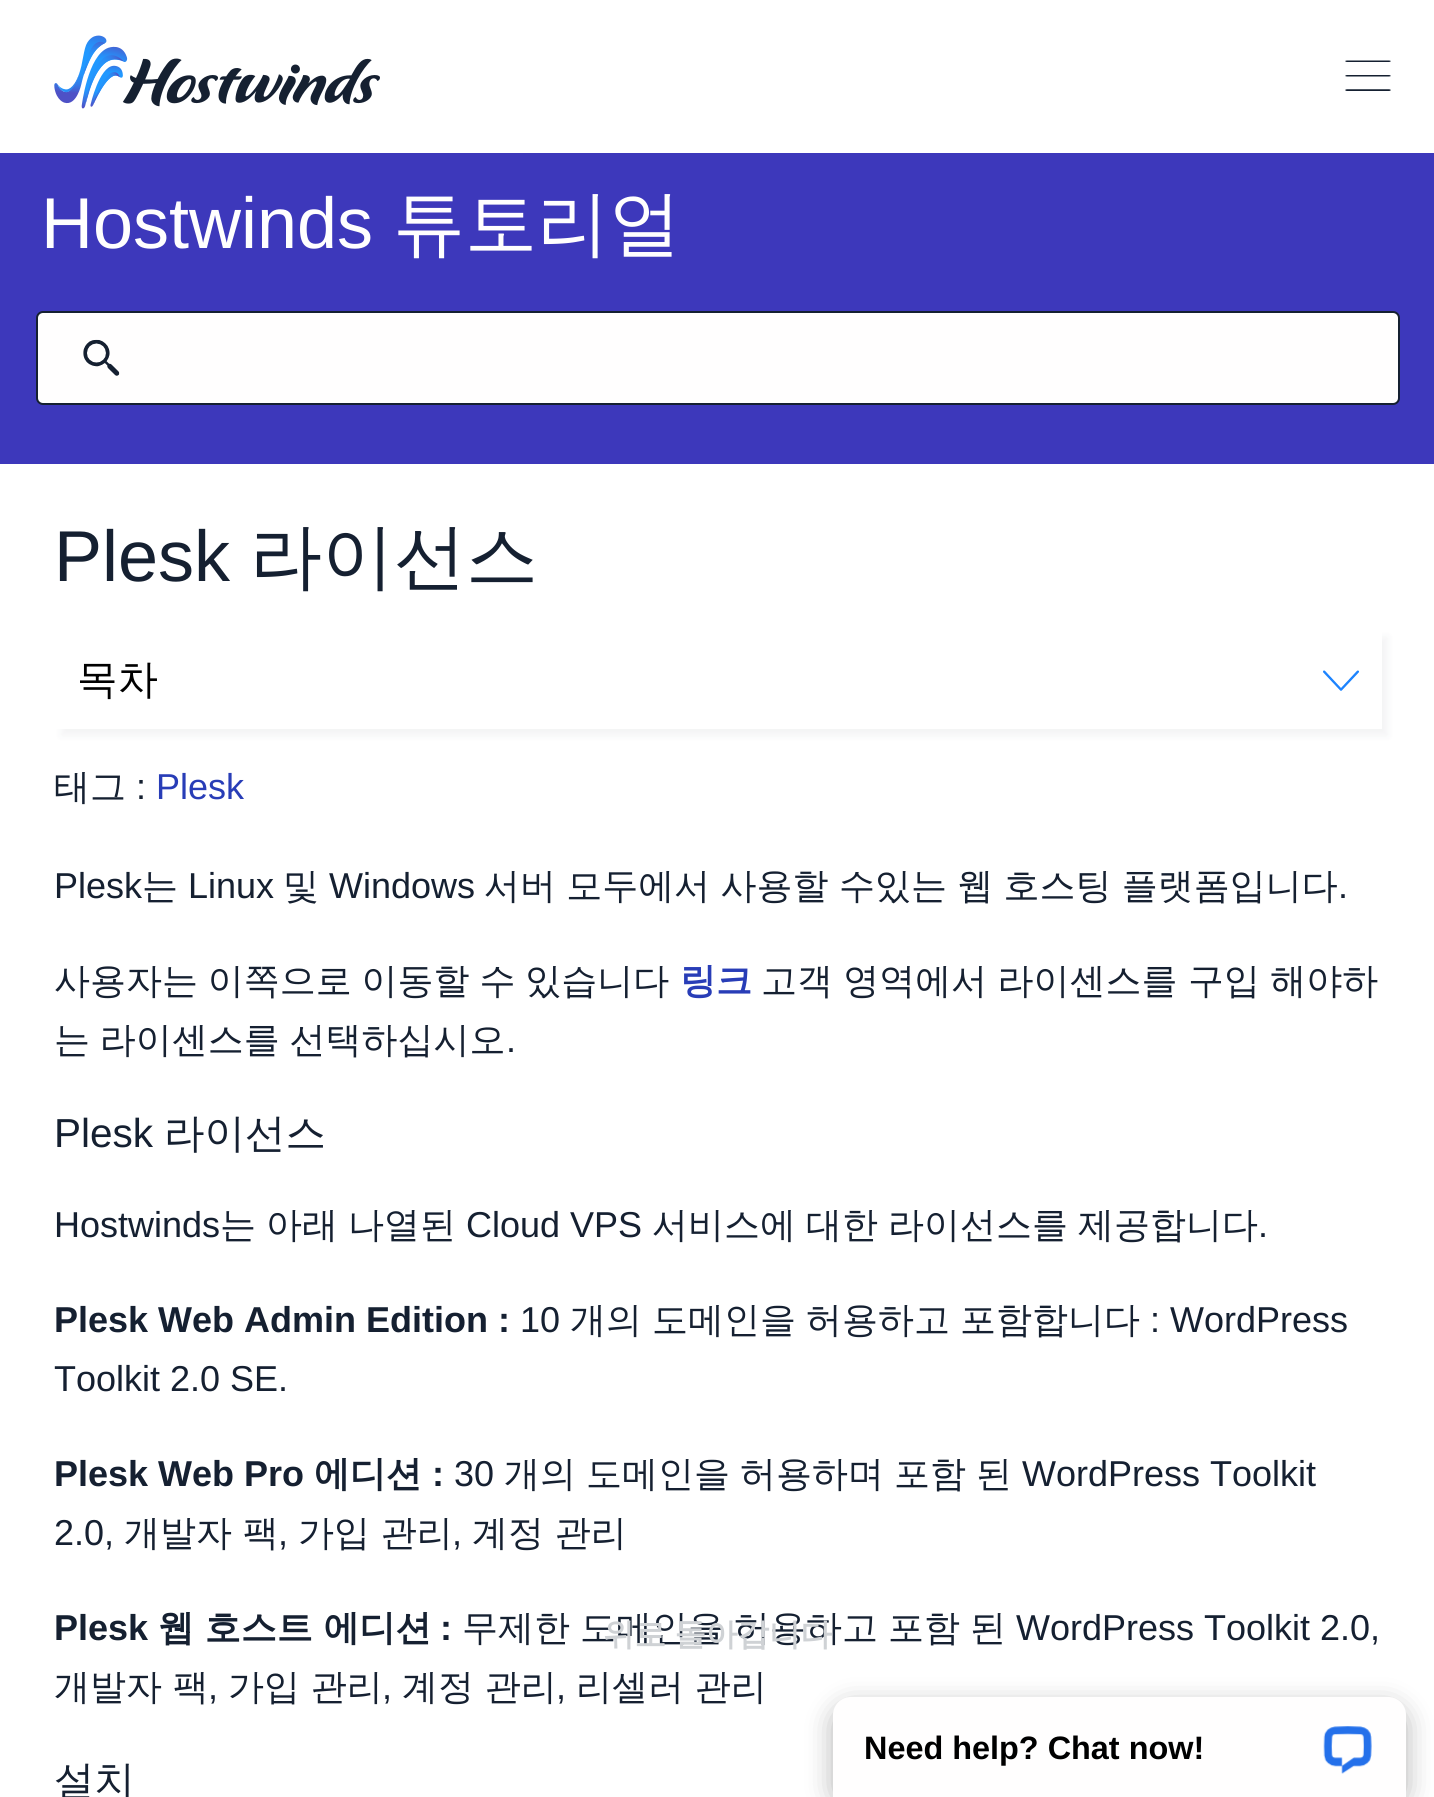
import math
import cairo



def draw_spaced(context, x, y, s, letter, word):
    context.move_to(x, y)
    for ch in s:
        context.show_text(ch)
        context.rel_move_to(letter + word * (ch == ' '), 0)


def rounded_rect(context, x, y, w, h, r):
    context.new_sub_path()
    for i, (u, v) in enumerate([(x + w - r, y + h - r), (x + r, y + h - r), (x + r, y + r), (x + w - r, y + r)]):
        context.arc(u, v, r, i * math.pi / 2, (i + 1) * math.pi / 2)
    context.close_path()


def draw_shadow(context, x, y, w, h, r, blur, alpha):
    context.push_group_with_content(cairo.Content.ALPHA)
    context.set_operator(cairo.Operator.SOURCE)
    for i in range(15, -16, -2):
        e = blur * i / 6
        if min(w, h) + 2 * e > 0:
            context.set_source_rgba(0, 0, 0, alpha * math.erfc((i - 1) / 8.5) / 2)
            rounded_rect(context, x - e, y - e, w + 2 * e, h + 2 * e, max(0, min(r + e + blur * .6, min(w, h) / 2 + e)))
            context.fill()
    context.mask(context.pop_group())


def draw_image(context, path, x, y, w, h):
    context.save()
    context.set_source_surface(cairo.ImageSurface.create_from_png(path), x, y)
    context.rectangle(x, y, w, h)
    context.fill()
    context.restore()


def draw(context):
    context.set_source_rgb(1, 1, 1)
    context.paint()
    draw_image(context, "images/1.png", 54, 35, 326, 74)
    draw_image(context, "images/2.png", 1345, 60, 46, 31)
    context.set_source_rgb(61 / 255, 56 / 255, 187 / 255)
    context.rectangle(0, 153, 1434, 311)
    context.fill()
    context.set_source_rgb(1, 254 / 255, 254 / 255)
    rounded_rect(context, 37, 312, 1362, 92, 6)
    context.fill_preserve()
    context.set_source_rgb(21 / 255, 32 / 255, 49 / 255)
    context.stroke()
    draw_image(context, "images/3.png", 83, 339, 37, 37)
    context.save()
    context.set_fill_rule(cairo.FillRule.EVEN_ODD)
    context.new_path()
    context.move_to(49, 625)
    context.line_to(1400, 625)
    context.line_to(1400, 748)
    context.line_to(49, 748)
    context.close_path()
    context.move_to(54, 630)
    context.line_to(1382, 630)
    context.line_to(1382, 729)
    context.line_to(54, 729)
    context.close_path()
    context.clip()
    context.set_source_rgb(21 / 255, 32 / 255, 49 / 255)
    draw_shadow(context, 61, 637, 1327, 99, 0, 3.5, 0.05)
    context.restore()
    draw_image(context, "images/4.png", 1323, 670, 36, 21)
    context.set_source_rgb(0, 0, 0)
    draw_shadow(context, 833, 1706, 573, 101, 18, 13.5, 0.3)
    context.set_source_rgb(1, 254 / 255, 254 / 255)
    context.new_path()
    context.move_to(851, 1697)
    context.line_to(1388, 1697)
    context.curve_to(1398, 1697, 1406, 1705, 1406, 1715)
    context.line_to(1406, 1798)
    context.line_to(833, 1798)
    context.line_to(833, 1715)
    context.curve_to(833, 1705, 841, 1697, 851, 1697)
    context.close_path()
    context.fill()
    draw_image(context, "images/5.png", 1323, 1726, 49, 48)
    context.select_font_face("Liberation Sans")
    context.set_font_size(72)
    context.move_to(41, 248)
    context.show_text("Hostwinds")
    context.select_font_face("WenQuanYi Zen Hei Medium")
    context.move_to(393, 248)
    context.show_text("튜토리얼")
    context.select_font_face("Liberation Sans")
    context.set_source_rgb(21 / 255, 32 / 255, 49 / 255)
    context.move_to(54, 581)
    context.show_text("Plesk")
    context.select_font_face("WenQuanYi Zen Hei Medium")
    context.move_to(250, 581)
    context.show_text("라이선스")
    context.set_font_size(40.5)
    context.set_source_rgb(0, 0, 0)
    context.move_to(77, 693)
    context.show_text("목차")
    context.set_font_size(36)
    context.set_source_rgb(21 / 255, 32 / 255, 49 / 255)
    context.move_to(54, 799)
    context.show_text("태그")
    context.select_font_face("Liberation Sans")
    context.move_to(136, 799)
    context.show_text(":")
    context.set_source_rgb(40 / 255, 61 / 255, 183 / 255)
    context.move_to(156, 799)
    context.show_text("Plesk")
    context.set_source_rgb(21 / 255, 32 / 255, 49 / 255)
    context.move_to(54, 898)
    context.show_text("Plesk")
    context.select_font_face("WenQuanYi Zen Hei Medium")
    context.move_to(142, 898)
    context.show_text("는")
    context.select_font_face("Liberation Sans")
    context.move_to(188, 898)
    context.show_text("Linux")
    context.select_font_face("WenQuanYi Zen Hei Medium")
    context.move_to(283, 898)
    context.show_text("및")
    context.select_font_face("Liberation Sans")
    context.move_to(329, 898)
    context.show_text("Windows")
    context.select_font_face("WenQuanYi Zen Hei Medium")
    draw_spaced(context, 484, 898, "서버 모두에서 사용할 수있는 웹 호스팅 플랫폼입니다", 0, -0.5)
    context.select_font_face("Liberation Sans")
    context.move_to(1338, 898)
    context.show_text(".")
    context.select_font_face("WenQuanYi Zen Hei Medium")
    draw_spaced(context, 54, 993, "사용자는 이쪽으로 이동할 수 있습니다", 0, -1)
    context.select_font_face("WenQuanYi Zen Hei", cairo.FontSlant.NORMAL, cairo.FontWeight.BOLD)
    context.set_source_rgb(40 / 255, 61 / 255, 183 / 255)
    context.move_to(680, 993)
    context.show_text("링크")
    context.select_font_face("WenQuanYi Zen Hei Medium")
    context.set_source_rgb(21 / 255, 32 / 255, 49 / 255)
    draw_spaced(context, 761, 993, "고객 영역에서 라이센스를 구입 해야하", 0, -0.5)
    draw_spaced(context, 54, 1052, "는 라이센스를 선택하십시오", 0, -1)
    context.select_font_face("Liberation Sans")
    context.move_to(506, 1052)
    context.show_text(".")
    context.set_font_size(40.5)
    context.move_to(54, 1147)
    context.show_text("Plesk")
    context.select_font_face("WenQuanYi Zen Hei Medium")
    context.move_to(164, 1147)
    context.show_text("라이선스")
    context.select_font_face("Liberation Sans")
    context.set_font_size(36)
    context.move_to(54, 1237)
    context.show_text("Hostwinds")
    context.select_font_face("WenQuanYi Zen Hei Medium")
    context.move_to(220, 1237)
    context.show_text("는")
    context.move_to(266, 1237)
    context.show_text("아래")
    context.move_to(348, 1237)
    context.show_text("나열된")
    context.select_font_face("Liberation Sans")
    context.move_to(466, 1237)
    context.show_text("Cloud VPS")
    context.select_font_face("WenQuanYi Zen Hei Medium")
    context.move_to(652, 1237)
    context.show_text("서비스에")
    context.move_to(806, 1237)
    context.show_text("대한")
    context.move_to(888, 1237)
    context.show_text("라이선스를")
    context.move_to(1078, 1237)
    context.show_text("제공합니다")
    context.select_font_face("Liberation Sans")
    context.move_to(1258, 1237)
    context.show_text(".")
    context.select_font_face("Liberation Sans", cairo.FontSlant.NORMAL, cairo.FontWeight.BOLD)
    context.move_to(54, 1332)
    context.show_text("Plesk Web Admin Edition :")
    context.select_font_face("Liberation Sans")
    context.move_to(520, 1332)
    context.show_text("10")
    context.select_font_face("WenQuanYi Zen Hei Medium")
    context.move_to(570, 1332)
    context.show_text("개의")
    context.move_to(652, 1332)
    context.show_text("도메인을")
    context.move_to(806, 1332)
    context.show_text("허용하고")
    context.move_to(960, 1332)
    context.show_text("포함합니다")
    context.select_font_face("Liberation Sans")
    context.move_to(1150, 1332)
    context.show_text(": WordPress")
    context.move_to(54, 1391)
    context.show_text("Toolkit 2.0 SE.")
    context.select_font_face("Liberation Sans", cairo.FontSlant.NORMAL, cairo.FontWeight.BOLD)
    context.move_to(54, 1486)
    context.show_text("Plesk Web Pro")
    context.select_font_face("WenQuanYi Zen Hei", cairo.FontSlant.NORMAL, cairo.FontWeight.BOLD)
    context.move_to(314, 1486)
    context.show_text("에디션")
    context.select_font_face("Liberation Sans", cairo.FontSlant.NORMAL, cairo.FontWeight.BOLD)
    context.move_to(432, 1486)
    context.show_text(":")
    context.select_font_face("Liberation Sans")
    context.move_to(454, 1486)
    context.show_text("30")
    context.select_font_face("WenQuanYi Zen Hei Medium")
    context.move_to(504, 1486)
    context.show_text("개의")
    context.move_to(586, 1486)
    context.show_text("도메인을")
    context.move_to(740, 1486)
    context.show_text("허용하며")
    context.move_to(894, 1486)
    context.show_text("포함")
    context.move_to(976, 1486)
    context.show_text("된")
    context.select_font_face("Liberation Sans")
    context.move_to(1022, 1486)
    context.show_text("WordPress Toolkit")
    context.move_to(54, 1545)
    context.show_text("2.0,")
    context.select_font_face("WenQuanYi Zen Hei Medium")
    context.move_to(124, 1545)
    context.show_text("개발자 팩")
    context.select_font_face("Liberation Sans")
    context.move_to(278, 1545)
    context.show_text(",")
    context.select_font_face("WenQuanYi Zen Hei Medium")
    context.move_to(298, 1545)
    context.show_text("가입 관리")
    context.select_font_face("Liberation Sans")
    context.move_to(452, 1545)
    context.show_text(",")
    context.select_font_face("WenQuanYi Zen Hei Medium")
    context.move_to(472, 1545)
    context.show_text("계정 관리")
    context.select_font_face("Liberation Sans", cairo.FontSlant.NORMAL, cairo.FontWeight.BOLD)
    context.move_to(54, 1640)
    context.show_text("Plesk")
    context.select_font_face("WenQuanYi Zen Hei", cairo.FontSlant.NORMAL, cairo.FontWeight.BOLD)
    context.move_to(158, 1640)
    context.show_text("웹 호스트 에디션")
    context.select_font_face("Liberation Sans", cairo.FontSlant.NORMAL, cairo.FontWeight.BOLD)
    context.move_to(440, 1640)
    context.show_text(":")
    context.select_font_face("WenQuanYi Zen Hei Medium")
    context.move_to(462, 1640)
    context.show_text("무제한")
    context.move_to(580, 1640)
    context.show_text("도메인을")
    context.move_to(734, 1640)
    context.show_text("허용하고")
    context.select_font_face("WenQuanYi Zen Hei", cairo.FontSlant.NORMAL, cairo.FontWeight.BOLD)
    context.set_font_size(31.5)
    context.set_source_rgb(207 / 255, 210 / 255, 213 / 255)
    draw_spaced(context, 603, 1645, "위로 돌아갑니다", 0, -1)
    context.select_font_face("WenQuanYi Zen Hei Medium")
    context.set_font_size(36)
    context.set_source_rgb(21 / 255, 32 / 255, 49 / 255)
    context.move_to(888, 1640)
    context.show_text("포함")
    context.move_to(970, 1640)
    context.show_text("된")
    context.select_font_face("Liberation Sans")
    context.move_to(1016, 1640)
    context.show_text("WordPress Toolkit 2.0,")
    context.select_font_face("WenQuanYi Zen Hei Medium")
    context.move_to(54, 1699)
    context.show_text("개발자 팩")
    context.select_font_face("Liberation Sans")
    context.move_to(208, 1699)
    context.show_text(",")
    context.select_font_face("WenQuanYi Zen Hei Medium")
    context.move_to(228, 1699)
    context.show_text("가입 관리")
    context.select_font_face("Liberation Sans")
    context.move_to(382, 1699)
    context.show_text(",")
    context.select_font_face("WenQuanYi Zen Hei Medium")
    context.move_to(402, 1699)
    context.show_text("계정 관리")
    context.select_font_face("Liberation Sans")
    context.move_to(556, 1699)
    context.show_text(",")
    context.select_font_face("WenQuanYi Zen Hei Medium")
    context.move_to(576, 1699)
    context.show_text("리셀러 관리")
    context.set_font_size(40.5)
    context.move_to(54, 1794)
    context.show_text("설치")
    context.select_font_face("Liberation Sans", cairo.FontSlant.NORMAL, cairo.FontWeight.BOLD)
    context.set_font_size(32.4)
    context.set_source_rgb(0, 0, 0)
    context.move_to(864, 1759)
    context.show_text("Need help? Chat now!")


surface = cairo.ImageSurface(cairo.Format.RGB24, 1434, 1797)
context = cairo.Context(surface)
options = cairo.FontOptions()
options.set_hint_metrics(cairo.HintMetrics.OFF)
options.set_hint_style(cairo.HintStyle.NONE)
context.set_font_options(options)
context.set_miter_limit(4)
draw(context)
surface.write_to_png("out.png")
